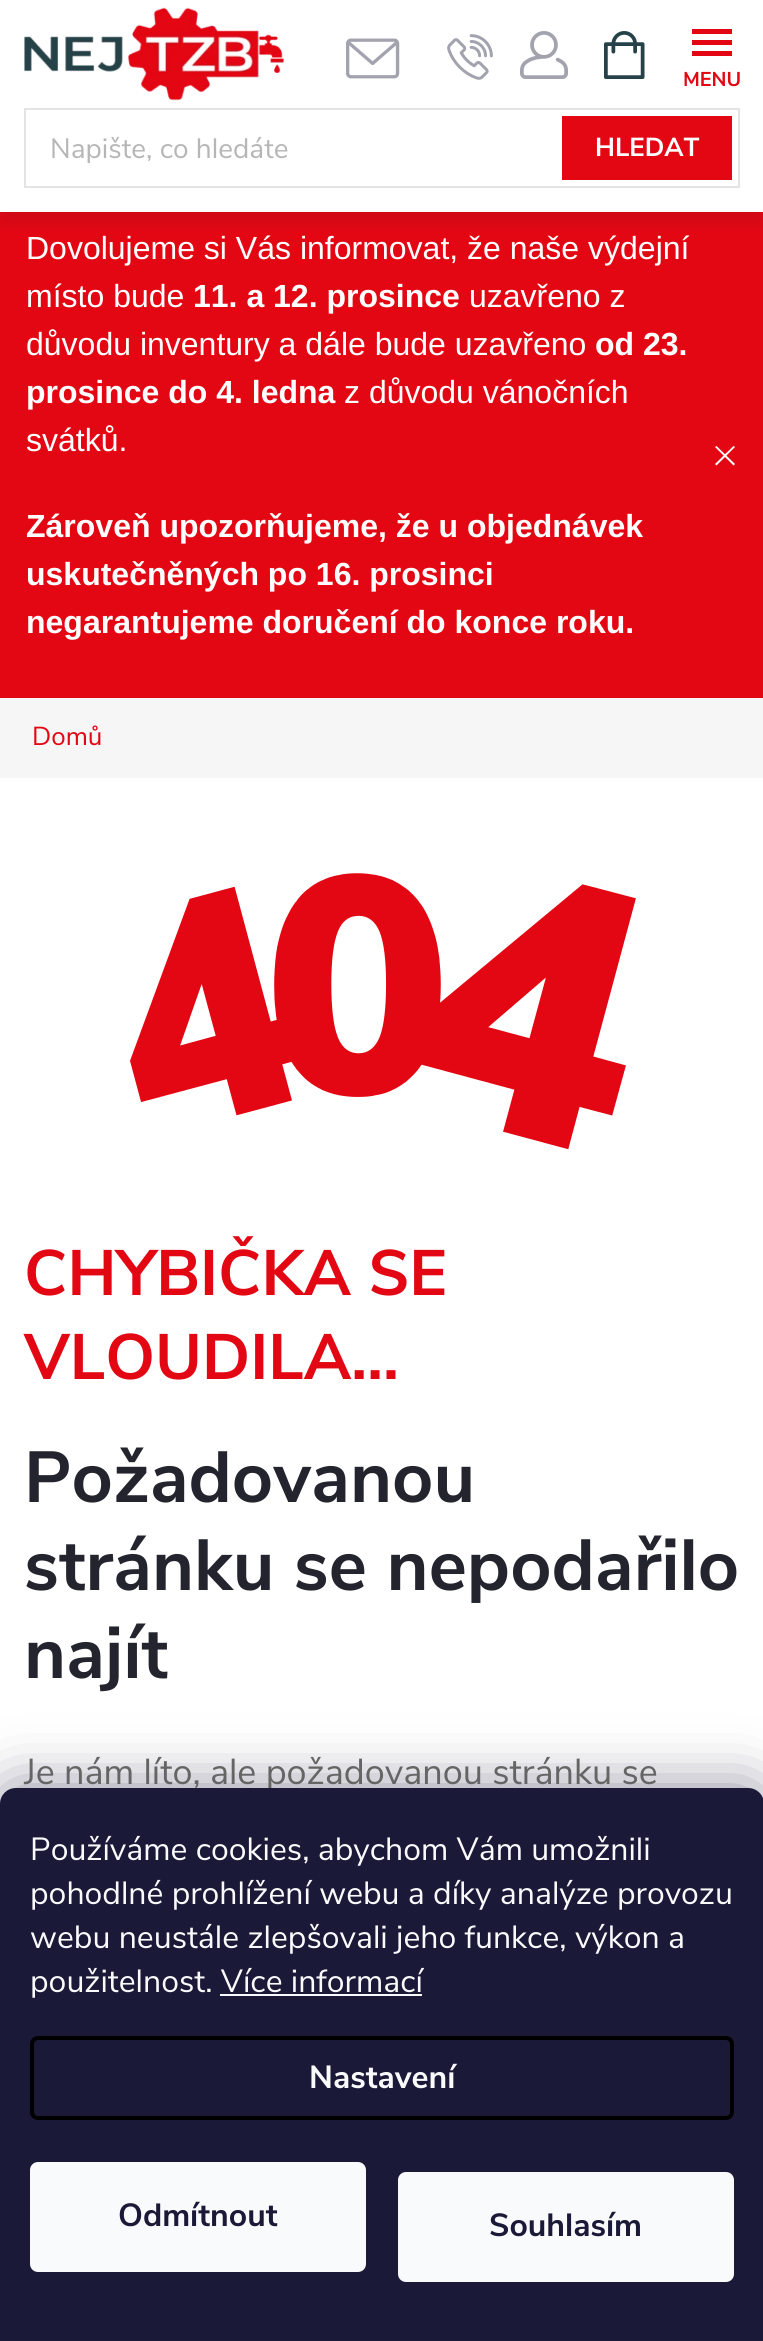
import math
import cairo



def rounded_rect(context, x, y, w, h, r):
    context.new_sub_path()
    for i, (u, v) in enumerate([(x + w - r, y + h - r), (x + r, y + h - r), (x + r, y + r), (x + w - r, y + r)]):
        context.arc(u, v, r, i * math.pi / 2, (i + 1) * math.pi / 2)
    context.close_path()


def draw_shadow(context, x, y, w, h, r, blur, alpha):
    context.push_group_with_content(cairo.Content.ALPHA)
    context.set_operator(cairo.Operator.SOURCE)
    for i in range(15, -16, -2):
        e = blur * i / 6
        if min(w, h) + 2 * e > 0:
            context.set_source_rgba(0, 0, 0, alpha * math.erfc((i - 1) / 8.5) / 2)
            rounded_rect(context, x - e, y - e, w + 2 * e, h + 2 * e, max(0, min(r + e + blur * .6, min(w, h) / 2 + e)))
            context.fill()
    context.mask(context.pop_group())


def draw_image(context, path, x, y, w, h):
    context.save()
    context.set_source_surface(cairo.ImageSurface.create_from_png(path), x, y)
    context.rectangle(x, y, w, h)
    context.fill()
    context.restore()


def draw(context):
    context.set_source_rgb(1, 1, 1)
    context.paint()
    draw_image(context, "images/1.png", 346, 38, 54, 41)
    draw_image(context, "images/2.png", 447, 34, 46, 46)
    draw_image(context, "images/3.png", 520, 31, 48, 48)
    context.set_source_rgb(227 / 255, 7 / 255, 19 / 255)
    context.new_path()
    context.move_to(692, 56)
    context.line_to(732, 56)
    context.line_to(732, 51)
    context.line_to(692, 51)
    context.close_path()
    context.move_to(692, 45)
    context.line_to(732, 45)
    context.line_to(732, 40)
    context.line_to(692, 40)
    context.close_path()
    context.move_to(692, 29)
    context.line_to(692, 34)
    context.line_to(732, 34)
    context.line_to(732, 29)
    context.close_path()
    context.fill()
    context.rectangle(0, 212, 763, 486)
    context.fill()
    context.save()
    context.rectangle(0, 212, 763, 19)
    context.clip()
    context.set_source_rgb(36 / 255, 36 / 255, 46 / 255)
    draw_shadow(context, 0, 120, 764, 104, 0, 8, 0.1)
    context.restore()
    draw_image(context, "images/4.png", 24, 7, 260, 94)
    draw_image(context, "images/5.png", 604, 31, 41, 48)
    context.rectangle(25, 109, 714, 78)
    context.set_source_rgb(228 / 255, 228 / 255, 228 / 255)
    context.stroke()
    context.set_source_rgb(227 / 255, 7 / 255, 19 / 255)
    context.rectangle(562, 116, 170, 64)
    context.fill()
    context.set_source_rgb(1, 1, 1)
    context.new_path()
    context.move_to(733.5, 446)
    context.line_to(735, 447)
    context.line_to(716.5, 465.5)
    context.line_to(715, 464)
    context.close_path()
    context.fill()
    context.new_path()
    context.move_to(716.5, 446)
    context.line_to(735, 464)
    context.line_to(733.5, 465.5)
    context.line_to(715, 447)
    context.close_path()
    context.fill()
    context.set_source_rgb(246 / 255, 246 / 255, 246 / 255)
    context.rectangle(0, 698, 763, 80)
    context.fill()
    draw_image(context, "images/6.png", 130, 873, 506, 277)
    context.set_source_rgb(27 / 255, 25 / 255, 57 / 255)
    draw_shadow(context, 0, 1788, 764, 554, 16, 30, 0.5)
    context.select_font_face("Nunito Sans", cairo.FontSlant.NORMAL, cairo.FontWeight.BOLD)
    context.set_font_size(20)
    context.set_source_rgb(227 / 255, 7 / 255, 19 / 255)
    context.move_to(683, 86)
    context.show_text("MENU")
    context.select_font_face("Nunito Sans")
    context.set_font_size(28)
    context.set_source_rgb(182 / 255, 182 / 255, 182 / 255)
    context.move_to(50, 158)
    context.show_text("Napište, co hledáte")
    context.select_font_face("Nunito Sans", cairo.FontSlant.NORMAL, cairo.FontWeight.BOLD)
    context.set_font_size(26)
    context.set_source_rgb(1, 1, 1)
    context.move_to(595, 156)
    context.show_text("HLEDAT")
    context.select_font_face("Liberation Sans")
    context.set_font_size(32)
    context.move_to(26, 259)
    context.show_text("Dovolujeme si Vás informovat, že naše výdejní")
    context.move_to(26, 307)
    context.show_text("místo bude")
    context.select_font_face("Liberation Sans", cairo.FontSlant.NORMAL, cairo.FontWeight.BOLD)
    context.move_to(193, 307)
    context.show_text("11. a 12. prosince")
    context.select_font_face("Liberation Sans")
    context.move_to(469, 307)
    context.show_text("uzavřeno z")
    context.move_to(26, 355)
    context.show_text("důvodu inventury a dále bude uzavřeno")
    context.select_font_face("Liberation Sans", cairo.FontSlant.NORMAL, cairo.FontWeight.BOLD)
    context.move_to(595, 355)
    context.show_text("od 23.")
    context.move_to(26, 403)
    context.show_text("prosince do 4. ledna")
    context.select_font_face("Liberation Sans")
    context.move_to(344, 403)
    context.show_text("z důvodu vánočních")
    context.move_to(26, 451)
    context.show_text("svátků.")
    context.select_font_face("Liberation Sans", cairo.FontSlant.NORMAL, cairo.FontWeight.BOLD)
    context.move_to(26, 537)
    context.show_text("Zároveň upozorňujeme, že u objednávek")
    context.move_to(26, 585)
    context.show_text("uskutečněných po 16. prosinci")
    context.move_to(26, 633)
    context.show_text("negarantujeme doručení do konce roku.")
    context.select_font_face("Nunito Sans")
    context.set_font_size(26)
    context.set_source_rgb(227 / 255, 7 / 255, 19 / 255)
    context.move_to(32, 745)
    context.show_text("Domů")
    context.select_font_face("Nunito Sans", cairo.FontSlant.NORMAL, cairo.FontWeight.BOLD)
    context.set_font_size(64)
    context.move_to(24, 1295)
    context.show_text("CHYBIČKA SE")
    context.move_to(24, 1379)
    context.show_text("VLOUDILA…")
    context.set_font_size(72)
    context.set_source_rgb(36 / 255, 36 / 255, 46 / 255)
    context.move_to(24, 1502)
    context.show_text("Požadovanou")
    context.move_to(24, 1590)
    context.show_text("stránku se nepodařilo")
    context.move_to(24, 1678)
    context.show_text("najít")
    context.select_font_face("Nunito Sans")
    context.set_font_size(36)
    context.set_source_rgb(101 / 255, 101 / 255, 101 / 255)
    context.move_to(24, 1784)
    context.show_text("Je nám líto, ale požadovanou stránku se")
    context.set_source_rgb(26 / 255, 25 / 255, 55 / 255)
    context.new_path()
    context.move_to(16, 1788)
    context.line_to(748, 1788)
    context.curve_to(757, 1788, 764, 1795, 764, 1804)
    context.line_to(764, 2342)
    context.line_to(0, 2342)
    context.line_to(0, 1804)
    context.curve_to(0, 1795, 7, 1788, 16, 1788)
    context.close_path()
    context.fill()
    context.set_font_size(32)
    context.set_source_rgb(248 / 255, 250 / 255, 251 / 255)
    context.move_to(30, 1860)
    context.show_text("Používáme cookies, abychom Vám umožnili")
    context.move_to(30, 1904)
    context.show_text("pohodlné prohlížení webu a díky analýze provozu")
    context.move_to(30, 1948)
    context.show_text("webu neustále zlepšovali jeho funkce, výkon a")
    context.move_to(30, 1992)
    context.show_text("použitelnost. Více informací")
    context.rectangle(220, 1994, 202, 2)
    context.fill()
    rounded_rect(context, 32, 2038, 700, 80, 6)
    context.set_source_rgb(0, 0, 0)
    context.set_line_width(4)
    context.stroke()
    context.select_font_face("Nunito Sans", cairo.FontSlant.NORMAL, cairo.FontWeight.BOLD)
    context.set_source_rgb(248 / 255, 250 / 255, 251 / 255)
    context.move_to(309, 2088)
    context.show_text("Nastavení")
    rounded_rect(context, 30, 2162, 336, 110, 8)
    context.fill()
    context.set_source_rgb(26 / 255, 25 / 255, 55 / 255)
    context.move_to(118, 2226)
    context.show_text("Odmítnout")
    context.set_source_rgb(248 / 255, 250 / 255, 251 / 255)
    rounded_rect(context, 398, 2172, 336, 110, 8)
    context.fill()
    context.set_source_rgb(26 / 255, 25 / 255, 55 / 255)
    context.move_to(489, 2236)
    context.show_text("Souhlasím")


surface = cairo.ImageSurface(cairo.Format.RGB24, 763, 2341)
context = cairo.Context(surface)
options = cairo.FontOptions()
options.set_hint_metrics(cairo.HintMetrics.OFF)
options.set_hint_style(cairo.HintStyle.NONE)
context.set_font_options(options)
context.set_miter_limit(4)
draw(context)
surface.write_to_png("out.png")
